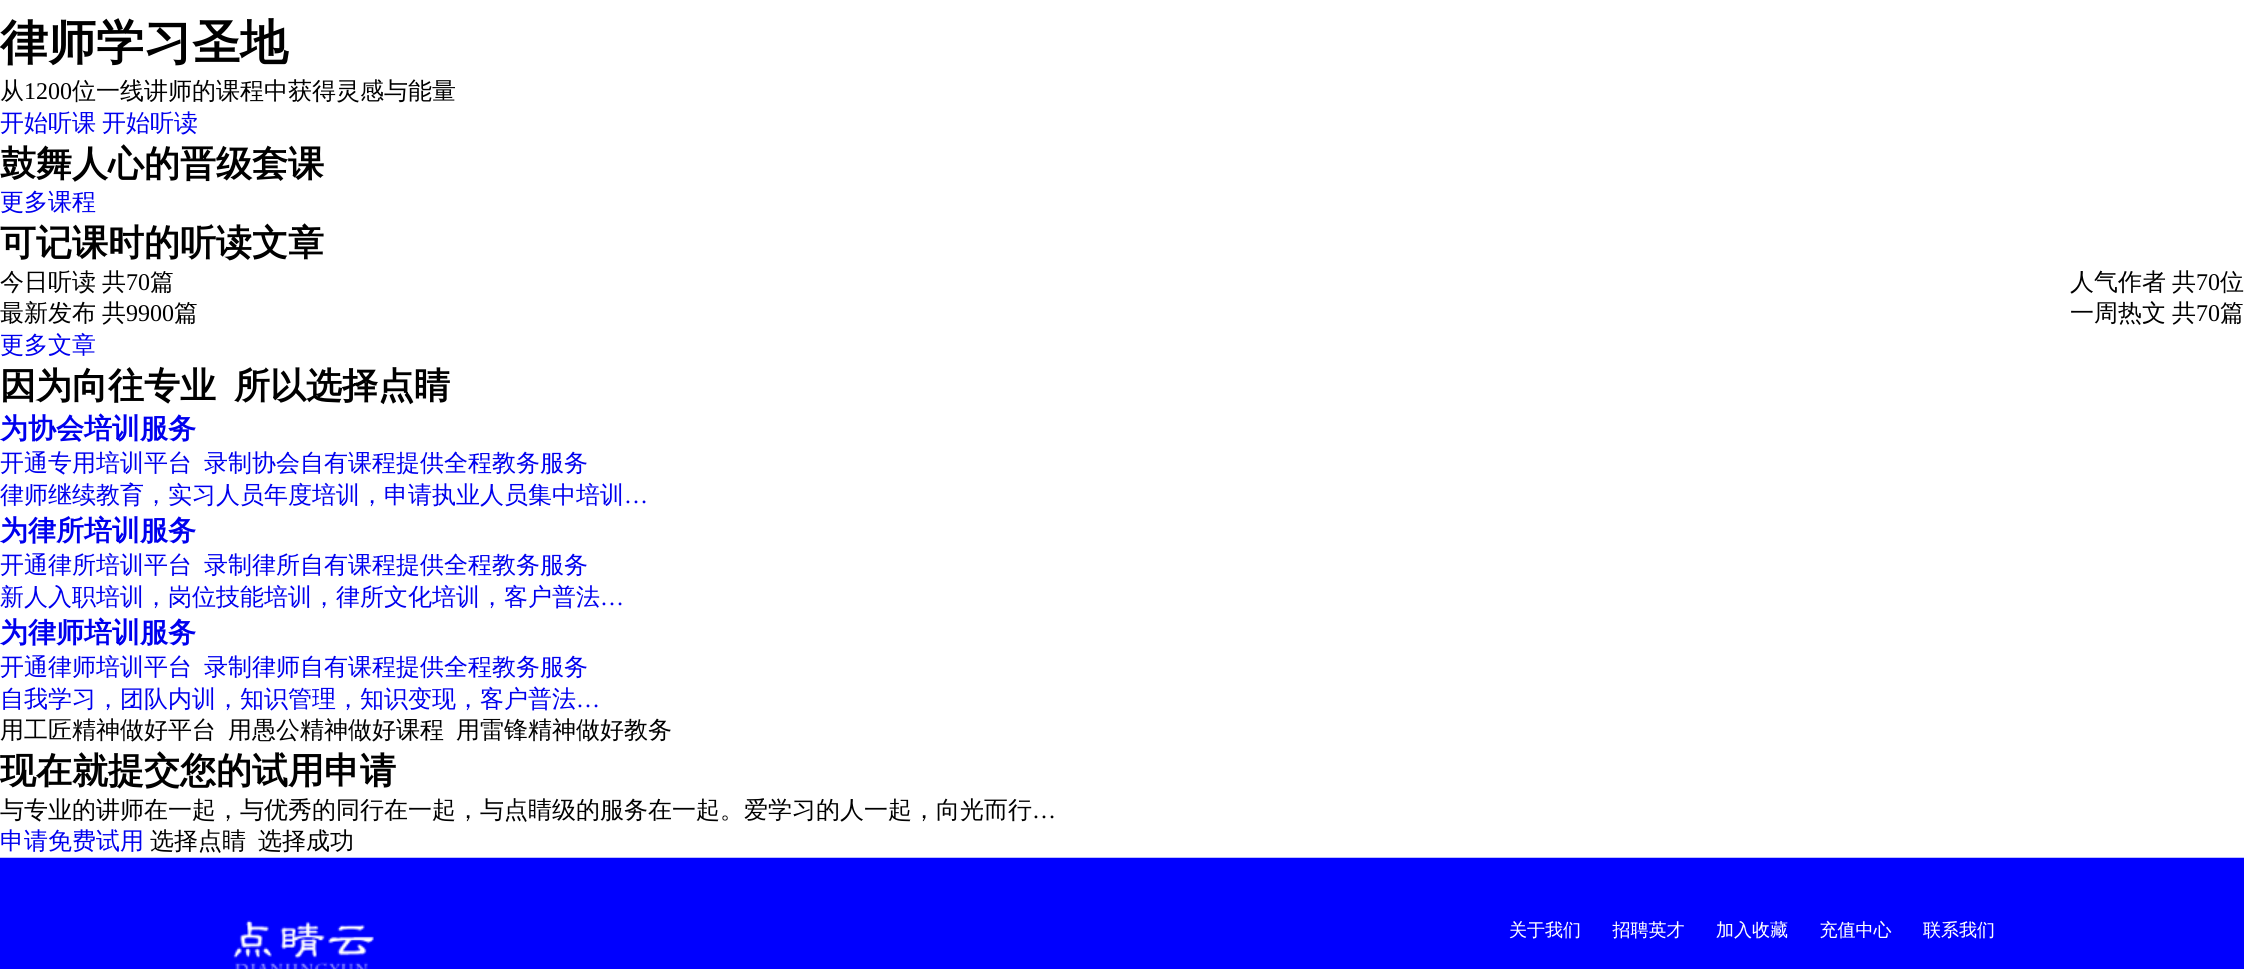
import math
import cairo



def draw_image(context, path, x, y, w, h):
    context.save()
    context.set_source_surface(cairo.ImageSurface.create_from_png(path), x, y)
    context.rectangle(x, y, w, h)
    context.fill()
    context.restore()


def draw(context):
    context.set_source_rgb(1, 1, 1)
    context.paint()
    draw_image(context, "images/1.png", 0, 857, 2244, 112)
    context.select_font_face("WenQuanYi Zen Hei", cairo.FontSlant.NORMAL, cairo.FontWeight.BOLD)
    context.set_font_size(48)
    context.set_source_rgb(0, 0, 0)
    context.move_to(0, 59)
    context.show_text("律师学习圣地")
    context.select_font_face("WenQuanYi Zen Hei Medium")
    context.set_font_size(24)
    context.move_to(0, 99)
    context.show_text("从")
    context.select_font_face("Liberation Serif")
    context.move_to(24, 99)
    context.show_text("1200")
    context.select_font_face("WenQuanYi Zen Hei Medium")
    context.move_to(72, 99)
    context.show_text("位一线讲师的课程中获得灵感与能量")
    context.set_source_rgb(0, 0, 238 / 255)
    context.move_to(0, 131)
    context.show_text("开始听课")
    context.move_to(102, 131)
    context.show_text("开始听读")
    context.select_font_face("WenQuanYi Zen Hei", cairo.FontSlant.NORMAL, cairo.FontWeight.BOLD)
    context.set_font_size(36)
    context.set_source_rgb(0, 0, 0)
    context.move_to(0, 176)
    context.show_text("鼓舞人心的晋级套课")
    context.select_font_face("WenQuanYi Zen Hei Medium")
    context.set_font_size(24)
    context.set_source_rgb(0, 0, 238 / 255)
    context.move_to(0, 210)
    context.show_text("更多课程")
    context.select_font_face("WenQuanYi Zen Hei", cairo.FontSlant.NORMAL, cairo.FontWeight.BOLD)
    context.set_font_size(36)
    context.set_source_rgb(0, 0, 0)
    context.move_to(0, 255)
    context.show_text("可记课时的听读文章")
    context.select_font_face("WenQuanYi Zen Hei Medium")
    context.set_font_size(24)
    context.move_to(0, 290)
    context.show_text("今日听读")
    context.move_to(102, 290)
    context.show_text("共")
    context.select_font_face("Liberation Serif")
    context.move_to(126, 290)
    context.show_text("70")
    context.select_font_face("WenQuanYi Zen Hei Medium")
    context.move_to(150, 290)
    context.show_text("篇")
    context.move_to(2070, 290)
    context.show_text("人气作者")
    context.move_to(2172, 290)
    context.show_text("共")
    context.select_font_face("Liberation Serif")
    context.move_to(2196, 290)
    context.show_text("70")
    context.select_font_face("WenQuanYi Zen Hei Medium")
    context.move_to(2220, 290)
    context.show_text("位")
    context.move_to(0, 321)
    context.show_text("最新发布")
    context.move_to(102, 321)
    context.show_text("共")
    context.select_font_face("Liberation Serif")
    context.move_to(126, 321)
    context.show_text("9900")
    context.select_font_face("WenQuanYi Zen Hei Medium")
    context.move_to(174, 321)
    context.show_text("篇")
    context.move_to(2070, 321)
    context.show_text("一周热文")
    context.move_to(2172, 321)
    context.show_text("共")
    context.select_font_face("Liberation Serif")
    context.move_to(2196, 321)
    context.show_text("70")
    context.select_font_face("WenQuanYi Zen Hei Medium")
    context.move_to(2220, 321)
    context.show_text("篇")
    context.set_source_rgb(0, 0, 238 / 255)
    context.move_to(0, 353)
    context.show_text("更多文章")
    context.select_font_face("WenQuanYi Zen Hei", cairo.FontSlant.NORMAL, cairo.FontWeight.BOLD)
    context.set_font_size(36)
    context.set_source_rgb(0, 0, 0)
    context.move_to(0, 398)
    context.show_text("因为向往专业")
    context.move_to(234, 398)
    context.show_text("所以选择点睛")
    context.set_font_size(28)
    context.set_source_rgb(0, 0, 238 / 255)
    context.move_to(0, 438)
    context.show_text("为协会培训服务")
    context.select_font_face("WenQuanYi Zen Hei Medium")
    context.set_font_size(24)
    context.move_to(0, 471)
    context.show_text("开通专用培训平台")
    context.move_to(204, 471)
    context.show_text("录制协会自有课程提供全程教务服务")
    context.move_to(0, 503)
    context.show_text("律师继续教育，实习人员年度培训，申请执业人员集中培训")
    context.select_font_face("Liberation Serif")
    context.move_to(624, 503)
    context.show_text("…")
    context.select_font_face("WenQuanYi Zen Hei", cairo.FontSlant.NORMAL, cairo.FontWeight.BOLD)
    context.set_font_size(28)
    context.move_to(0, 540)
    context.show_text("为律所培训服务")
    context.select_font_face("WenQuanYi Zen Hei Medium")
    context.set_font_size(24)
    context.move_to(0, 573)
    context.show_text("开通律所培训平台")
    context.move_to(204, 573)
    context.show_text("录制律所自有课程提供全程教务服务")
    context.move_to(0, 605)
    context.show_text("新人入职培训，岗位技能培训，律所文化培训，客户普法")
    context.select_font_face("Liberation Serif")
    context.move_to(600, 605)
    context.show_text("…")
    context.select_font_face("WenQuanYi Zen Hei", cairo.FontSlant.NORMAL, cairo.FontWeight.BOLD)
    context.set_font_size(28)
    context.move_to(0, 642)
    context.show_text("为律师培训服务")
    context.select_font_face("WenQuanYi Zen Hei Medium")
    context.set_font_size(24)
    context.move_to(0, 675)
    context.show_text("开通律师培训平台")
    context.move_to(204, 675)
    context.show_text("录制律师自有课程提供全程教务服务")
    context.move_to(0, 707)
    context.show_text("自我学习，团队内训，知识管理，知识变现，客户普法")
    context.select_font_face("Liberation Serif")
    context.move_to(576, 707)
    context.show_text("…")
    context.select_font_face("WenQuanYi Zen Hei Medium")
    context.set_source_rgb(0, 0, 0)
    context.move_to(0, 738)
    context.show_text("用工匠精神做好平台")
    context.move_to(228, 738)
    context.show_text("用愚公精神做好课程")
    context.move_to(456, 738)
    context.show_text("用雷锋精神做好教务")
    context.select_font_face("WenQuanYi Zen Hei", cairo.FontSlant.NORMAL, cairo.FontWeight.BOLD)
    context.set_font_size(36)
    context.move_to(0, 783)
    context.show_text("现在就提交您的试用申请")
    context.select_font_face("WenQuanYi Zen Hei Medium")
    context.set_font_size(24)
    context.move_to(0, 818)
    context.show_text("与专业的讲师在一起，与优秀的同行在一起，与点睛级的服务在一起。爱学习的人一起，向光而行")
    context.select_font_face("Liberation Serif")
    context.move_to(1032, 818)
    context.show_text("…")
    context.select_font_face("WenQuanYi Zen Hei Medium")
    context.set_source_rgb(0, 0, 238 / 255)
    context.move_to(0, 849)
    context.show_text("申请免费试用")
    context.set_source_rgb(0, 0, 0)
    context.move_to(150, 849)
    context.show_text("选择点睛")
    context.move_to(258, 849)
    context.show_text("选择成功")


surface = cairo.ImageSurface(cairo.Format.RGB24, 2244, 969)
context = cairo.Context(surface)
options = cairo.FontOptions()
options.set_hint_metrics(cairo.HintMetrics.OFF)
options.set_hint_style(cairo.HintStyle.NONE)
context.set_font_options(options)
context.set_miter_limit(4)
draw(context)
surface.write_to_png("out.png")
